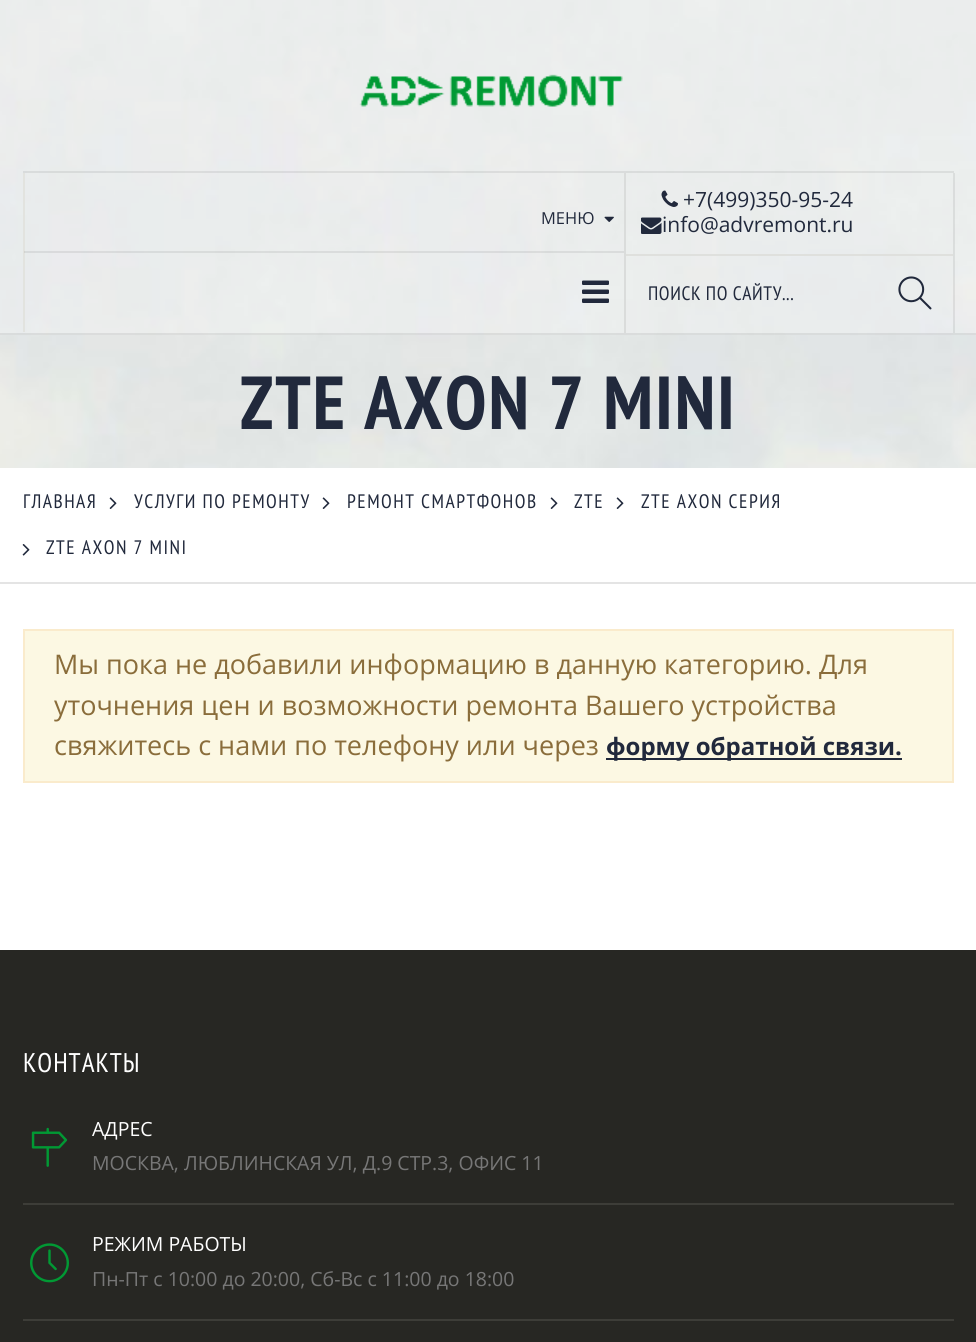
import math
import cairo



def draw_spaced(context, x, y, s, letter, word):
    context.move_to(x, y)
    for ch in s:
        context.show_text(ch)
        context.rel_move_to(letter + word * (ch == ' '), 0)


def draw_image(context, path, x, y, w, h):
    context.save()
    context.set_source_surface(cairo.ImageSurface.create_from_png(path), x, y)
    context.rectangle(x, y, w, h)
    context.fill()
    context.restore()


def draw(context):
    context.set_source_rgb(1, 1, 1)
    context.paint()
    draw_image(context, "images/7.png", 0, 0, 976, 468)
    context.set_source_rgba(1, 1, 1, 0.3)
    context.rectangle(0, 0, 976, 335)
    context.fill()
    context.set_source_rgba(60 / 255, 60 / 255, 60 / 255, 0.1)
    context.rectangle(0, 333, 976, 2)
    context.fill()
    draw_image(context, "images/1.png", 359, 74, 264, 33)
    context.rectangle(23, 171, 931, 2)
    context.fill()
    context.set_source_rgb(226 / 255, 227 / 255, 223 / 255)
    context.rectangle(23, 173, 2, 159)
    context.fill()
    context.set_source_rgba(60 / 255, 60 / 255, 60 / 255, 0.1)
    context.rectangle(24, 251, 600, 2)
    context.fill()
    draw_image(context, "images/2.png", 604, 216, 10, 6)
    draw_image(context, "images/3.png", 582, 280, 27, 23)
    context.rectangle(953, 173, 2, 160)
    context.fill()
    context.set_source_rgb(218 / 255, 220 / 255, 219 / 255)
    context.rectangle(624, 173, 2, 160)
    context.fill()
    draw_image(context, "images/4.png", 661, 190, 17, 17)
    draw_image(context, "images/5.png", 641, 217, 21, 17)
    context.set_source_rgb(223 / 255, 224 / 255, 221 / 255)
    context.rectangle(626, 254, 327, 2)
    context.fill()
    draw_image(context, "images/6.png", 898, 276, 34, 34)
    context.set_source_rgb(228 / 255, 228 / 255, 228 / 255)
    context.rectangle(0, 582, 976, 2)
    context.fill()
    draw_image(context, "images/8.png", 109, 497, 8, 12)
    draw_image(context, "images/8.png", 322, 497, 8, 12)
    draw_image(context, "images/8.png", 550, 497, 8, 12)
    draw_image(context, "images/8.png", 616, 497, 8, 12)
    draw_image(context, "images/9.png", 22, 544, 8, 12)
    context.set_source_rgb(252 / 255, 248 / 255, 227 / 255)
    context.rectangle(24, 630, 929, 152)
    context.fill_preserve()
    context.set_source_rgb(250 / 255, 235 / 255, 204 / 255)
    context.stroke()
    context.set_source_rgb(33 / 255, 41 / 255, 60 / 255)
    context.rectangle(606, 758, 296, 2)
    context.fill()
    context.set_source_rgb(39 / 255, 39 / 255, 35 / 255)
    context.rectangle(0, 950, 976, 392)
    context.fill()
    draw_image(context, "images/10.png", 31, 1127, 37, 40)
    context.set_source_rgb(61 / 255, 61 / 255, 56 / 255)
    context.rectangle(23, 1203, 931, 2)
    context.fill()
    draw_image(context, "images/11.png", 30, 1243, 39, 40)
    context.rectangle(23, 1319, 931, 2)
    context.fill()
    context.select_font_face("Open Sans")
    context.set_font_size(16.5)
    context.set_source_rgb(33 / 255, 41 / 255, 60 / 255)
    context.move_to(541, 224)
    context.show_text("МЕНЮ")
    context.set_font_size(21)
    context.move_to(683, 207)
    context.show_text("+7(499)350-95-24")
    context.move_to(662, 232)
    context.show_text("info@advremont.ru")
    context.select_font_face("PT Sans Narrow")
    context.set_font_size(19.5)
    draw_spaced(context, 648, 300, "ПОИСК ПО САЙТУ...", 0.6, 0)
    context.select_font_face("PT Sans Narrow", cairo.FontSlant.NORMAL, cairo.FontWeight.BOLD)
    context.set_font_size(75)
    draw_spaced(context, 240, 429, "ZTE AXON 7 MINI", 1.9, 0)
    context.select_font_face("PT Sans Narrow")
    context.set_font_size(19.5)
    draw_spaced(context, 23, 508, "ГЛАВНАЯ", 1.5, 0)
    draw_spaced(context, 134, 508, "УСЛУГИ ПО РЕМОНТУ", 1.5, 0)
    draw_spaced(context, 347, 508, "РЕМОНТ СМАРТФОНОВ", 1.5, 0)
    draw_spaced(context, 574, 508, "ZTE", 1.5, 0)
    draw_spaced(context, 641, 508, "ZTE AXON СЕРИЯ", 1.5, 0)
    draw_spaced(context, 46, 554, "ZTE AXON 7 MINI", 1.5, 0)
    context.select_font_face("Open Sans")
    context.set_font_size(27)
    context.set_source_rgb(138 / 255, 109 / 255, 59 / 255)
    context.move_to(54, 674)
    context.show_text("Мы пока не добавили информацию в данную категорию. Для")
    context.move_to(54, 715)
    context.show_text("уточнения цен и возможности ремонта Вашего устройства")
    context.move_to(54, 755)
    context.show_text("свяжитесь с нами по телефону или через")
    context.select_font_face("Open Sans", cairo.FontSlant.NORMAL, cairo.FontWeight.BOLD)
    context.set_font_size(24)
    context.set_source_rgb(33 / 255, 41 / 255, 60 / 255)
    context.move_to(606, 755)
    context.show_text("форму обратной связи.")
    context.select_font_face("PT Sans Narrow")
    context.set_font_size(27)
    context.set_source_rgb(1, 1, 1)
    draw_spaced(context, 23, 1072, "КОНТАКТЫ", 1, 0)
    context.select_font_face("Open Sans")
    context.set_font_size(19.5)
    context.move_to(92, 1136)
    context.show_text("АДРЕС")
    context.set_source_rgb(119 / 255, 119 / 255, 119 / 255)
    context.move_to(92, 1170)
    context.show_text("МОСКВА, ЛЮБЛИНСКАЯ УЛ, Д.9 СТР.3, ОФИС 11")
    context.set_source_rgb(1, 1, 1)
    context.move_to(92, 1251)
    context.show_text("РЕЖИМ РАБОТЫ")
    context.set_source_rgb(119 / 255, 119 / 255, 119 / 255)
    context.move_to(92, 1286)
    context.show_text("Пн-Пт с 10:00 до 20:00, Сб-Вс с 11:00 до 18:00")


surface = cairo.ImageSurface(cairo.Format.RGB24, 976, 1342)
context = cairo.Context(surface)
options = cairo.FontOptions()
options.set_hint_metrics(cairo.HintMetrics.OFF)
options.set_hint_style(cairo.HintStyle.NONE)
context.set_font_options(options)
context.set_miter_limit(4)
draw(context)
surface.write_to_png("out.png")
